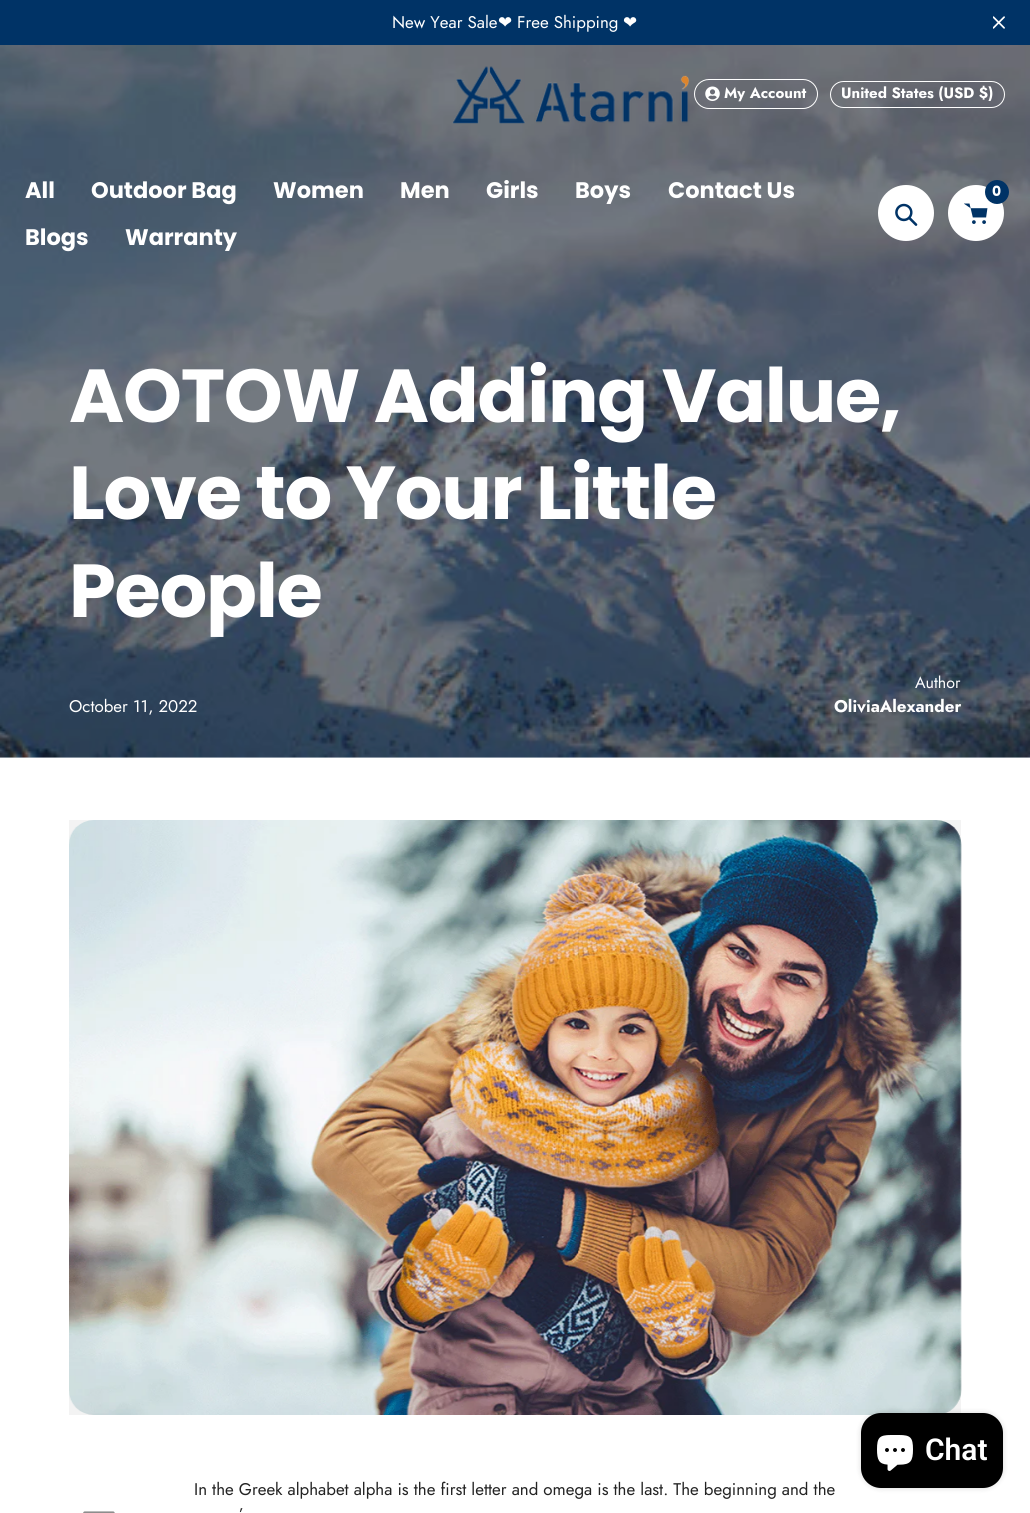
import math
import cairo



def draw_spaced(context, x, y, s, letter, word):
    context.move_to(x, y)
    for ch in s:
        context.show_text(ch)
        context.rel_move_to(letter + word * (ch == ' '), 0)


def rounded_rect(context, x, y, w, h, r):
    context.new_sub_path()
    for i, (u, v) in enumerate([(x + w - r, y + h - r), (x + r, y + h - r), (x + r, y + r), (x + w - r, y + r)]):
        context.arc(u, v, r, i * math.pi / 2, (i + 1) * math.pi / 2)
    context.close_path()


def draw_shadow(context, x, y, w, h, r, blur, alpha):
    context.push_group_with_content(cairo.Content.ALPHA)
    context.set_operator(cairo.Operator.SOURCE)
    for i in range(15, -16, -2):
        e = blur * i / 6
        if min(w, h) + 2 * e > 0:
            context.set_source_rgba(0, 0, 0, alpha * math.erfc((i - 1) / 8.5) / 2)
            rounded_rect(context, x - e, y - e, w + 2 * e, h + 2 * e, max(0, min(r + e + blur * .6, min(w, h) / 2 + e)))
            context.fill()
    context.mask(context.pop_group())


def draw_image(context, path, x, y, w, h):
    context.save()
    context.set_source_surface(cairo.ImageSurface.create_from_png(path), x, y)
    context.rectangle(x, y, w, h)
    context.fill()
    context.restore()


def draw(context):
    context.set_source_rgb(1, 1, 1)
    context.paint()
    context.set_source_rgb(222 / 255, 228 / 255, 235 / 255)
    context.rectangle(0, 757, 1030, 1)
    context.fill()
    context.set_source_rgb(0, 51 / 255, 102 / 255)
    context.rectangle(0, 0, 1030, 45)
    context.fill()
    draw_image(context, "images/1.png", 993, 16, 12, 13)
    draw_image(context, "images/6.png", 0, 45, 1030, 713)
    draw_image(context, "images/2.png", 452, 66, 238, 58)
    rounded_rect(context, 694.5, 79.5, 123, 29, 14.5)
    context.set_source_rgb(1, 1, 1)
    context.set_line_width(1)
    context.stroke()
    draw_image(context, "images/3.png", 705, 86, 15, 15)
    rounded_rect(context, 830.5, 81.5, 174, 26, 13)
    context.stroke()
    context.arc(906, 213, 28, 0, 2 * math.pi)
    context.fill()
    draw_image(context, "images/4.png", 895, 203, 23, 23)
    context.arc(976, 213, 28, 0, 2 * math.pi)
    context.fill()
    draw_image(context, "images/5.png", 964, 203, 24, 21)
    context.set_source_rgb(0, 51 / 255, 102 / 255)
    context.arc(997, 192, 12, 0, 2 * math.pi)
    context.fill()
    context.set_source_rgb(243 / 255, 243 / 255, 243 / 255)
    context.rectangle(69, 820, 892, 595)
    context.fill()
    draw_image(context, "images/7.png", 69, 820, 893, 595)
    draw_image(context, "images/8.png", 83, 1511, 32, 2)
    context.set_source_rgb(0, 0, 0)
    draw_shadow(context, 861, 1413, 142, 75, 20, 3, 0.15)
    context.set_source_rgb(0, 0, 0)
    rounded_rect(context, 861, 1413, 142, 75, 20)
    context.fill()
    draw_image(context, "images/9.png", 877, 1435, 36, 36)
    context.select_font_face("Jost")
    context.set_font_size(16.9)
    context.set_source_rgb(1, 1, 1)
    context.move_to(392, 28)
    context.show_text("New Year Sale")
    context.select_font_face("DejaVu Sans")
    context.move_to(498, 28)
    context.show_text("❤")
    context.select_font_face("Jost")
    context.move_to(517, 28)
    context.show_text("Free Shipping")
    context.select_font_face("DejaVu Sans")
    context.move_to(623, 28)
    context.show_text("❤")
    context.select_font_face("Jost", cairo.FontSlant.NORMAL, cairo.FontWeight.BOLD)
    context.set_font_size(15)
    context.move_to(724, 98)
    context.show_text("My Account")
    context.move_to(841, 98)
    context.show_text("United States (USD $)")
    context.select_font_face("Poppins", cairo.FontSlant.NORMAL, cairo.FontWeight.BOLD)
    context.set_font_size(22.5)
    context.move_to(25, 198)
    context.show_text("All")
    context.move_to(91, 198)
    context.show_text("Outdoor Bag")
    context.move_to(273, 198)
    context.show_text("Women")
    context.move_to(400, 198)
    context.show_text("Men")
    context.move_to(486, 198)
    context.show_text("Girls")
    context.move_to(575, 198)
    context.show_text("Boys")
    context.move_to(668, 198)
    context.show_text("Contact Us")
    context.move_to(25, 245)
    context.show_text("Blogs")
    context.move_to(125, 245)
    context.show_text("Warranty")
    context.set_font_size(14)
    context.move_to(992, 196)
    context.show_text("0")
    context.set_font_size(75)
    draw_spaced(context, 69, 422, "AOTOW Adding Value,", -1.25, 0)
    draw_spaced(context, 69, 519, "Love to Your Little", -1.25, 0)
    draw_spaced(context, 69, 617, "People", -1.25, 0)
    context.select_font_face("Jost")
    context.set_font_size(16.9)
    context.move_to(69, 712)
    context.show_text("October 11, 2022")
    context.set_font_size(16)
    context.move_to(915, 688)
    context.show_text("Author")
    context.select_font_face("Jost", cairo.FontSlant.NORMAL, cairo.FontWeight.BOLD)
    context.set_font_size(16.9)
    context.move_to(834, 712)
    context.show_text("OliviaAlexander")
    context.select_font_face("Jost")
    context.set_source_rgb(35 / 255, 35 / 255, 35 / 255)
    context.move_to(194, 1495)
    context.show_text("In the Greek alphabet alpha is the first letter and omega is the last. The beginning and the")
    context.move_to(239, 1520)
    context.show_text("’")
    context.select_font_face("Roboto SemiBold")
    context.set_font_size(30)
    context.set_source_rgb(1, 1, 1)
    context.move_to(925, 1460)
    context.show_text("Chat")


surface = cairo.ImageSurface(cairo.Format.RGB24, 1030, 1513)
context = cairo.Context(surface)
options = cairo.FontOptions()
options.set_hint_metrics(cairo.HintMetrics.OFF)
options.set_hint_style(cairo.HintStyle.NONE)
context.set_font_options(options)
context.set_miter_limit(4)
draw(context)
surface.write_to_png("out.png")
